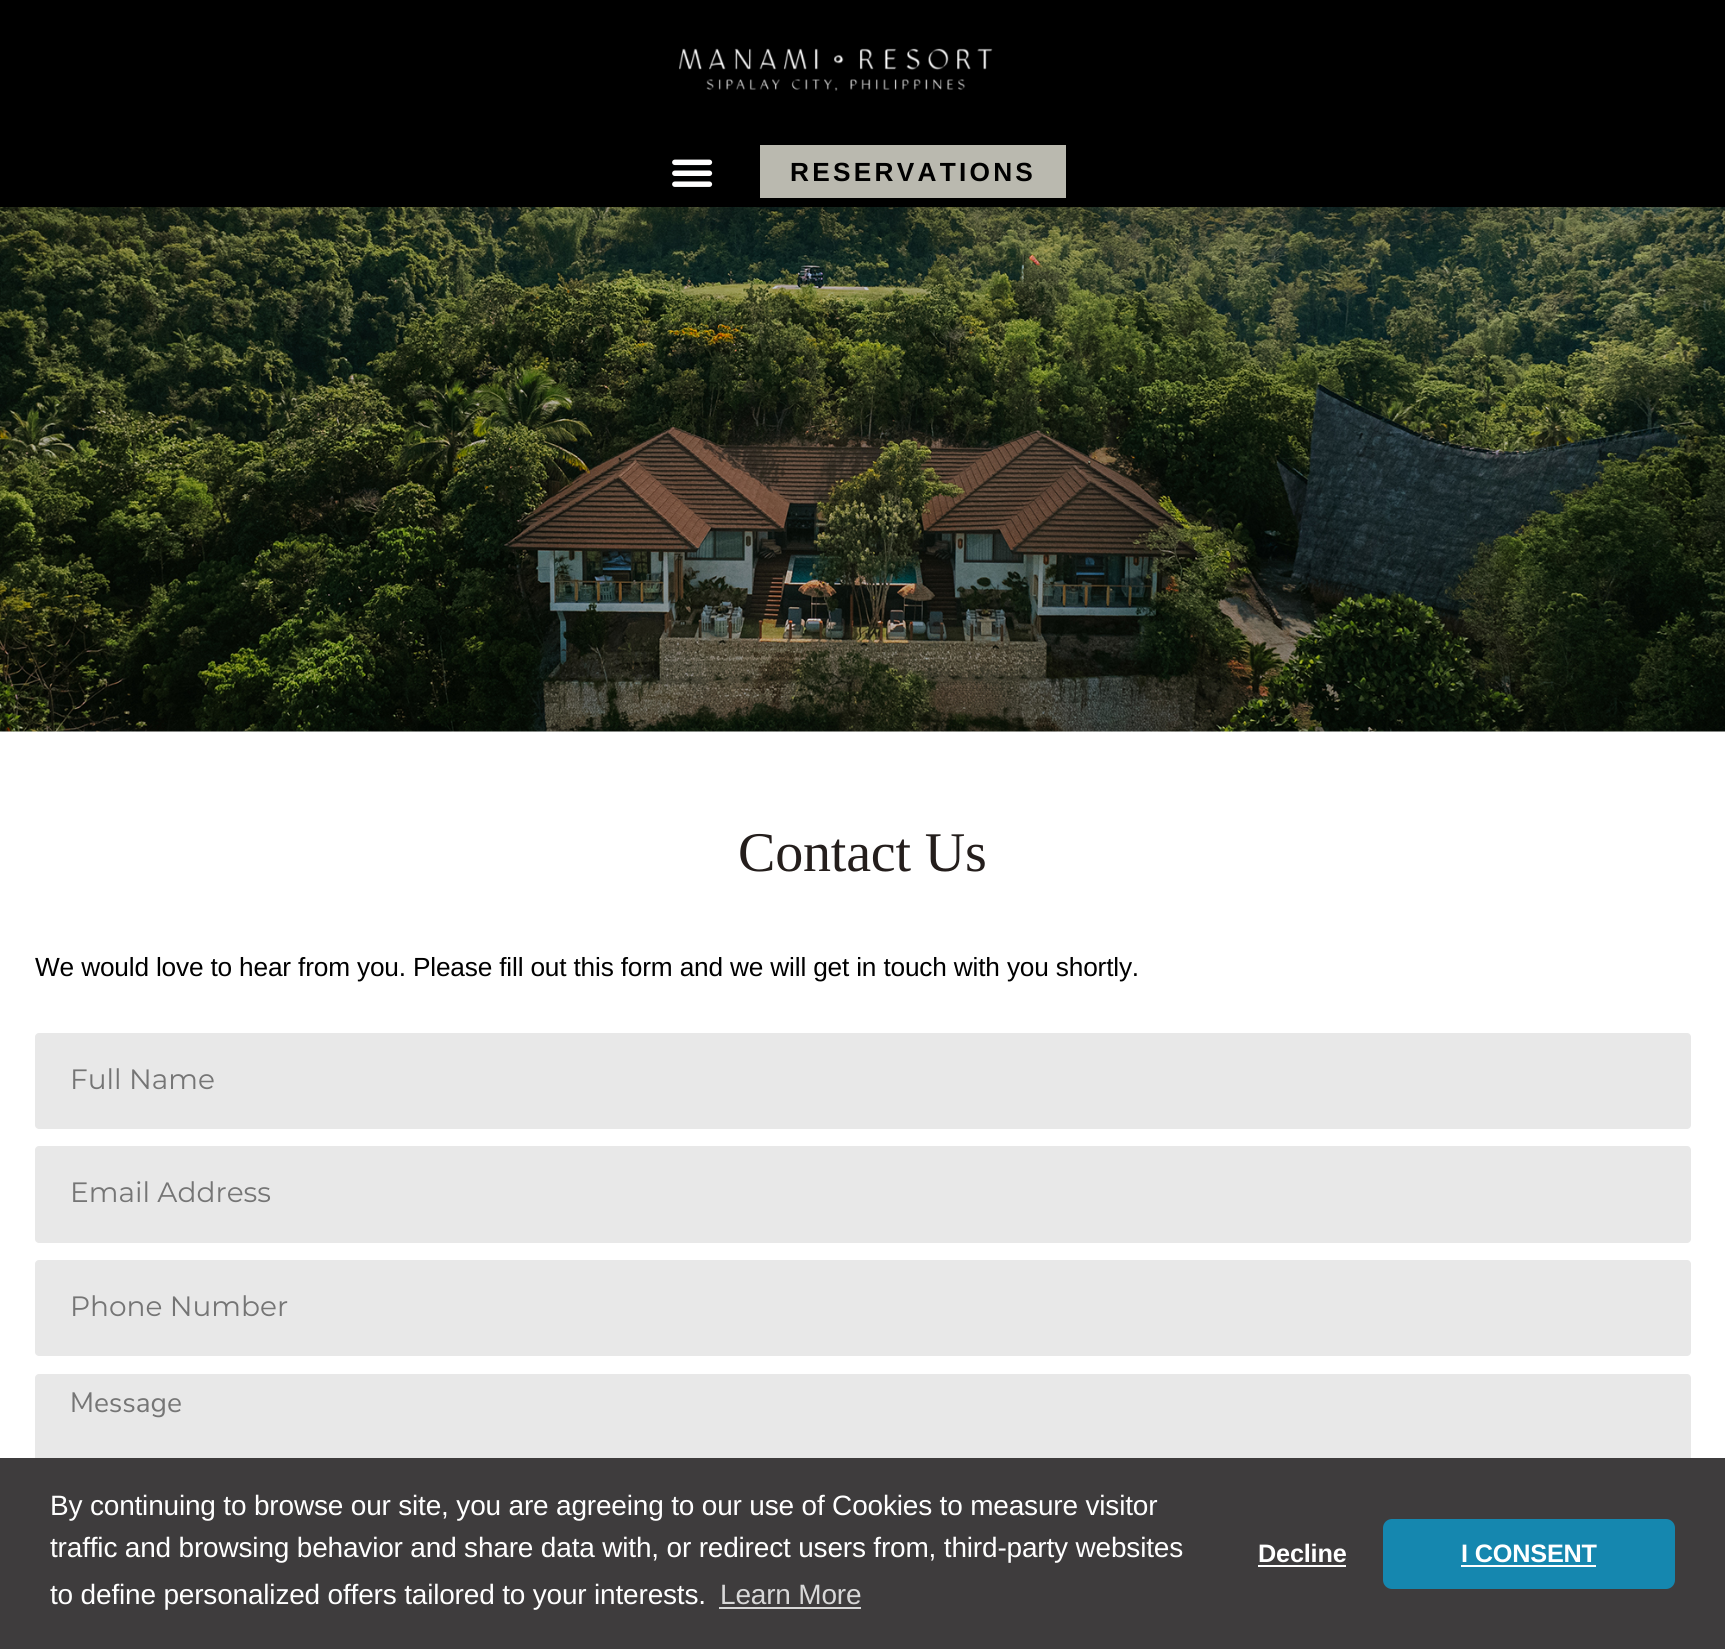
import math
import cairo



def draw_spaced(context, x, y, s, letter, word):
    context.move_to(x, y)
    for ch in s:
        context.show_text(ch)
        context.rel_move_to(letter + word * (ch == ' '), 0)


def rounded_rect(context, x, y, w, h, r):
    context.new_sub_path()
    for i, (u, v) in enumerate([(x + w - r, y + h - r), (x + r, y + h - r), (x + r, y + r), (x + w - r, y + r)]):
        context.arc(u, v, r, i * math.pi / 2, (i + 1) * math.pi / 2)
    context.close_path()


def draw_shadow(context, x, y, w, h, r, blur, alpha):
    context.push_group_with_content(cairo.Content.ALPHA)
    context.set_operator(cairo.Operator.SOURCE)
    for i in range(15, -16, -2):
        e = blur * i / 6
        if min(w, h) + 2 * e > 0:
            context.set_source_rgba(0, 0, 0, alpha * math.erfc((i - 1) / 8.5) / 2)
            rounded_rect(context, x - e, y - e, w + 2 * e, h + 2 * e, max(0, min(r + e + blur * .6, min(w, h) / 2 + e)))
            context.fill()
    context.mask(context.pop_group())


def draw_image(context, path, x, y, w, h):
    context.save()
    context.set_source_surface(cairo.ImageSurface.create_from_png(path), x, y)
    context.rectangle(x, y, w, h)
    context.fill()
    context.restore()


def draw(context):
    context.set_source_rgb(1, 1, 1)
    context.paint()
    draw_image(context, "images/3.png", 0, 207, 1725, 525)
    context.set_source_rgb(0, 0, 0)
    draw_shadow(context, 0, 18, 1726, 206, 0, 17.5, 0.1)
    context.set_source_rgb(0, 0, 0)
    context.rectangle(0, 0, 1725, 207)
    context.fill()
    draw_image(context, "images/1.png", 679, 48, 314, 43)
    draw_image(context, "images/2.png", 672, 159, 41, 28)
    context.set_source_rgb(186 / 255, 185 / 255, 175 / 255)
    context.rectangle(760, 145, 306, 53)
    context.fill()
    context.set_source_rgb(232 / 255, 232 / 255, 232 / 255)
    rounded_rect(context, 35, 1033, 1656, 96, 4)
    context.fill()
    rounded_rect(context, 35, 1146, 1656, 97, 4)
    context.fill()
    rounded_rect(context, 35, 1260, 1656, 96, 4)
    context.fill()
    rounded_rect(context, 35, 1374, 1656, 234, 4)
    context.fill()
    context.set_source_rgb(62 / 255, 60 / 255, 61 / 255)
    context.rectangle(0, 1458, 1725, 191)
    context.fill()
    context.set_source_rgb(216 / 255, 216 / 255, 216 / 255)
    context.rectangle(719, 1607, 142, 2)
    context.fill()
    context.set_source_rgb(1, 1, 1)
    context.rectangle(1258, 1565, 88, 2)
    context.fill()
    context.set_source_rgb(21 / 255, 135 / 255, 175 / 255)
    rounded_rect(context, 1383, 1519, 292, 70, 9)
    context.fill()
    context.set_source_rgb(1, 1, 1)
    context.rectangle(1461, 1565, 135, 2)
    context.fill()
    context.select_font_face("Liberation Sans", cairo.FontSlant.NORMAL, cairo.FontWeight.BOLD)
    context.set_font_size(26.25)
    context.set_source_rgb(0, 0, 0)
    draw_spaced(context, 790, 181, "RESERVATIONS", 3.25, 0)
    context.select_font_face("Liberation Serif")
    context.set_font_size(56)
    context.set_source_rgb(36 / 255, 30 / 255, 28 / 255)
    draw_spaced(context, 738, 871, "Contact Us", -0.18, 0)
    context.select_font_face("Liberation Sans")
    context.set_font_size(26.25)
    context.set_source_rgb(0, 0, 0)
    draw_spaced(context, 35, 976, "We would love to hear from you. Please fill out this form and we will get in touch with you shortly.", -0.18, 0)
    context.select_font_face("Montserrat")
    context.set_font_size(28)
    context.set_source_rgb(117 / 255, 117 / 255, 117 / 255)
    context.move_to(70, 1089)
    context.show_text("Full Name")
    context.move_to(70, 1202)
    context.show_text("Email Address")
    context.move_to(70, 1316)
    context.show_text("Phone Number")
    context.select_font_face("Nunito Sans")
    context.move_to(70, 1412)
    context.show_text("Message")
    context.select_font_face("Liberation Sans")
    context.set_source_rgb(1, 1, 1)
    draw_spaced(context, 50, 1515, "By continuing to browse our site, you are agreeing to our use of Cookies to measure visitor", -0.18, 0)
    draw_spaced(context, 50, 1557, "traffic and browsing behavior and share data with, or redirect users from, third-party websites", -0.18, 0)
    draw_spaced(context, 50, 1604, "to define personalized offers tailored to your interests.", -0.18, 0)
    context.set_source_rgb(216 / 255, 216 / 255, 216 / 255)
    draw_spaced(context, 720, 1604, "Learn More", -0.18, 0)
    context.select_font_face("Liberation Sans", cairo.FontSlant.NORMAL, cairo.FontWeight.BOLD)
    context.set_font_size(25.25)
    context.set_source_rgb(1, 1, 1)
    draw_spaced(context, 1258, 1562, "Decline", -0.18, 0)
    draw_spaced(context, 1461, 1562, "I CONSENT", -0.18, 0)


surface = cairo.ImageSurface(cairo.Format.RGB24, 1725, 1649)
context = cairo.Context(surface)
options = cairo.FontOptions()
options.set_hint_metrics(cairo.HintMetrics.OFF)
options.set_hint_style(cairo.HintStyle.NONE)
context.set_font_options(options)
context.set_miter_limit(4)
draw(context)
surface.write_to_png("out.png")
